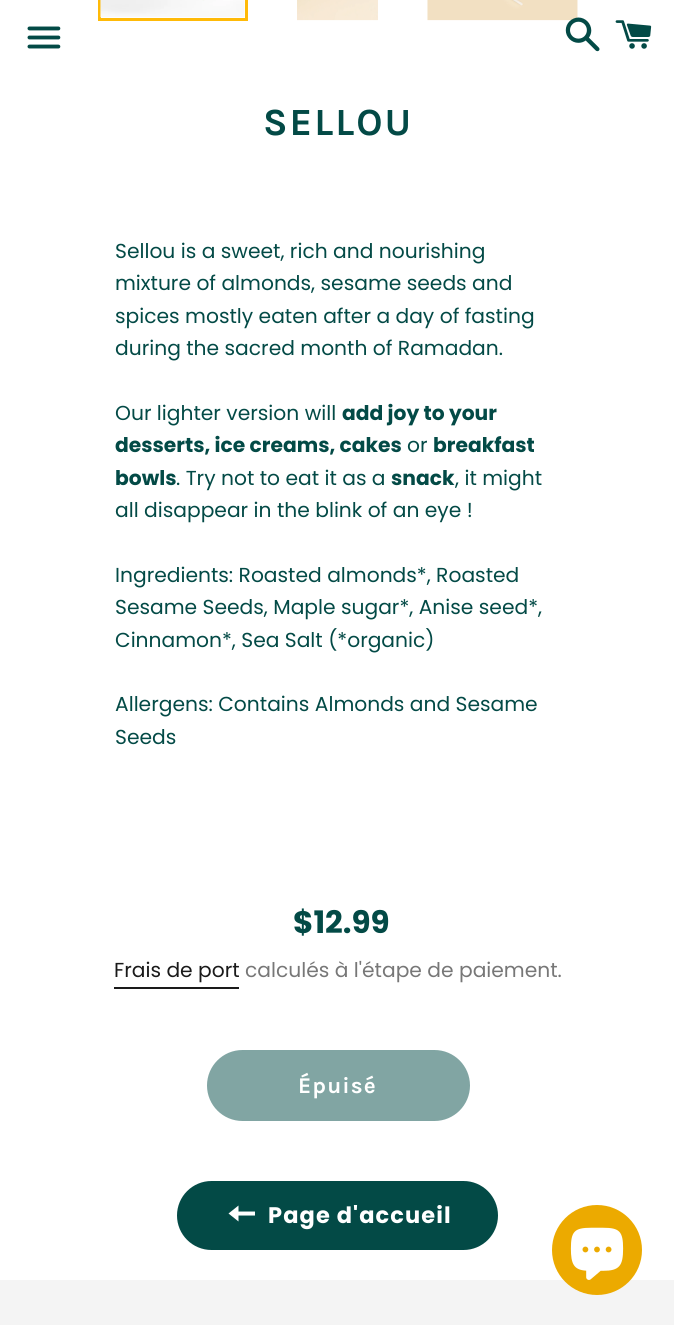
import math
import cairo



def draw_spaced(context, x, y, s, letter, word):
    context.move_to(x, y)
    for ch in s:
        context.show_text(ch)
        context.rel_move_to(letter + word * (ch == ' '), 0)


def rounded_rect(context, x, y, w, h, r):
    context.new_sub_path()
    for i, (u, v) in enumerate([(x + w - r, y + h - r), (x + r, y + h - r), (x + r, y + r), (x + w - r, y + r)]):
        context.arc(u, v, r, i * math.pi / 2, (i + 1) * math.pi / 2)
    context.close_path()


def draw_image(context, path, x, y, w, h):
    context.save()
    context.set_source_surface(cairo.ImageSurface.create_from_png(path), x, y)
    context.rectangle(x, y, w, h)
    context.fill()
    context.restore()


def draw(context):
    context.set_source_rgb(1, 1, 1)
    context.paint()
    draw_image(context, "images/1.png", 27, 26, 34, 23)
    draw_image(context, "images/6.png", 427, 0, 151, 21)
    draw_image(context, "images/2.png", 565, 17, 35, 35)
    draw_image(context, "images/3.png", 615, 20, 37, 29)
    context.rectangle(99.5, -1.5, 147, 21)
    context.set_source_rgb(1, 186 / 255, 8 / 255)
    context.set_line_width(3)
    context.stroke()
    draw_image(context, "images/4.png", 100, 0, 145, 18)
    draw_image(context, "images/5.png", 297, 0, 81, 21)
    context.set_source_rgb(26 / 255, 26 / 255, 26 / 255)
    context.rectangle(114, 987, 125, 2)
    context.fill()
    context.set_source_rgb(129 / 255, 165 / 255, 163 / 255)
    rounded_rect(context, 208.5, 1051.5, 260, 68, 34)
    context.fill_preserve()
    context.stroke()
    context.set_source_rgb(3 / 255, 74 / 255, 70 / 255)
    rounded_rect(context, 177, 1181, 321, 69, 34.5)
    context.fill()
    context.set_source_rgb(1, 1, 1)
    context.new_path()
    context.move_to(238.5, 1211.5)
    context.line_to(238.5, 1205.5)
    context.line_to(228.5, 1213.5)
    context.line_to(238.5, 1221.5)
    context.line_to(238.5, 1215.5)
    context.line_to(255, 1215.5)
    context.line_to(255, 1211.5)
    context.close_path()
    context.fill()
    context.set_source_rgb(244 / 255, 244 / 255, 244 / 255)
    context.rectangle(0, 1280, 674, 45)
    context.fill()
    context.set_source_rgb(236 / 255, 170 / 255, 0)
    context.arc(597, 1250, 45, 0, 2 * math.pi)
    context.fill()
    draw_image(context, "images/7.png", 570, 1227, 54, 53)
    context.select_font_face("Karla", cairo.FontSlant.NORMAL, cairo.FontWeight.BOLD)
    context.set_font_size(38.5)
    context.set_source_rgb(3 / 255, 74 / 255, 70 / 255)
    draw_spaced(context, 263, 135, "SELLOU", 2, 0)
    context.select_font_face("Poppins")
    context.set_font_size(20.25)
    context.move_to(115, 258)
    context.show_text("Sellou is a sweet, rich and nourishing")
    context.move_to(115, 290)
    context.show_text("mixture of almonds, sesame seeds and")
    context.move_to(115, 323)
    context.show_text("spices mostly eaten after a day of fasting")
    context.move_to(115, 355)
    context.show_text("during the sacred month of Ramadan.")
    context.move_to(115, 420)
    context.show_text("Our lighter version will")
    context.select_font_face("Poppins", cairo.FontSlant.NORMAL, cairo.FontWeight.BOLD)
    context.move_to(342, 420)
    context.show_text("add joy to your")
    context.move_to(115, 452)
    context.show_text("desserts, ice creams, cakes")
    context.select_font_face("Poppins")
    context.move_to(407, 452)
    context.show_text("or")
    context.select_font_face("Poppins", cairo.FontSlant.NORMAL, cairo.FontWeight.BOLD)
    context.move_to(433, 452)
    context.show_text("breakfast")
    context.move_to(115, 485)
    context.show_text("bowls")
    context.select_font_face("Poppins")
    context.move_to(176, 485)
    context.show_text(". Try not to eat it as a")
    context.select_font_face("Poppins", cairo.FontSlant.NORMAL, cairo.FontWeight.BOLD)
    context.move_to(391, 485)
    context.show_text("snack")
    context.select_font_face("Poppins")
    context.move_to(455, 485)
    context.show_text(", it might")
    context.move_to(115, 517)
    context.show_text("all disappear in the blink of an eye !")
    context.move_to(115, 582)
    context.show_text("Ingredients: Roasted almonds*, Roasted")
    context.move_to(115, 614)
    context.show_text("Sesame Seeds, Maple sugar*, Anise seed*,")
    context.move_to(115, 647)
    context.show_text("Cinnamon*, Sea Salt (*organic)")
    context.move_to(115, 711)
    context.show_text("Allergens: Contains Almonds and Sesame")
    context.move_to(115, 744)
    context.show_text("Seeds")
    context.select_font_face("Poppins", cairo.FontSlant.NORMAL, cairo.FontWeight.BOLD)
    context.set_font_size(31)
    context.move_to(293, 933)
    context.show_text("$12.99")
    context.select_font_face("Poppins")
    context.set_font_size(20.25)
    context.set_source_rgb(26 / 255, 26 / 255, 26 / 255)
    context.move_to(114, 977)
    context.show_text("Frais de port")
    context.set_source_rgb(119 / 255, 119 / 255, 119 / 255)
    context.move_to(245, 977)
    context.show_text("calculés à l'étape de paiement.")
    context.select_font_face("Karla", cairo.FontSlant.NORMAL, cairo.FontWeight.BOLD)
    context.set_font_size(22.5)
    context.set_source_rgb(1, 1, 1)
    draw_spaced(context, 298, 1093, "Épuisé", 1.1, 0)
    context.select_font_face("Poppins", cairo.FontSlant.NORMAL, cairo.FontWeight.BOLD)
    draw_spaced(context, 268, 1223, "Page d'accueil", 1.1, 0)


surface = cairo.ImageSurface(cairo.Format.RGB24, 674, 1325)
context = cairo.Context(surface)
options = cairo.FontOptions()
options.set_hint_metrics(cairo.HintMetrics.OFF)
options.set_hint_style(cairo.HintStyle.NONE)
context.set_font_options(options)
context.set_miter_limit(4)
draw(context)
surface.write_to_png("out.png")
